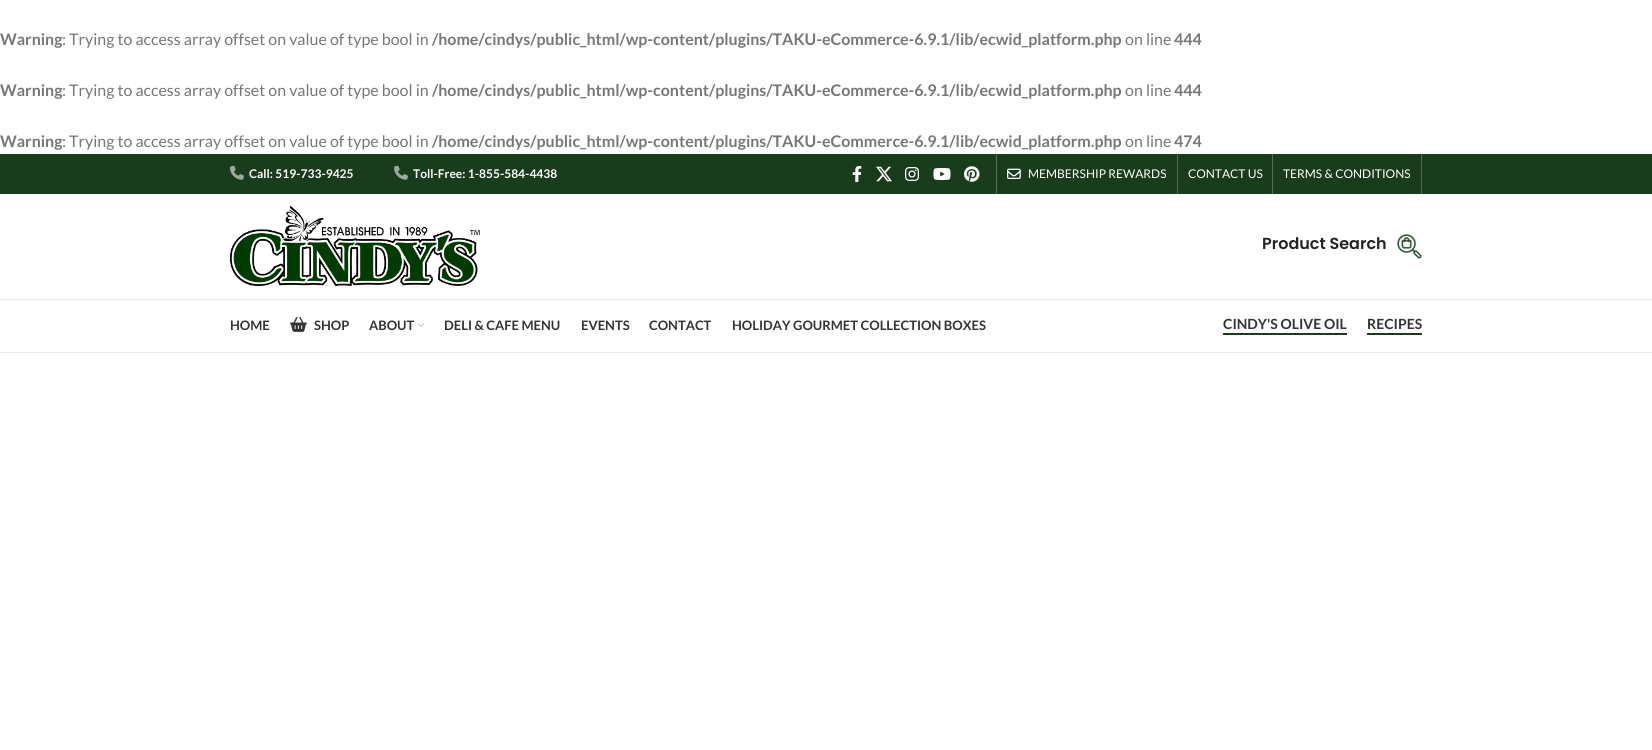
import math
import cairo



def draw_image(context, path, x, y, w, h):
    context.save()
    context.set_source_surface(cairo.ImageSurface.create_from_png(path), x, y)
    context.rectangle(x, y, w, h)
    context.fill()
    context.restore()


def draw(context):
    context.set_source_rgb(1, 1, 1)
    context.paint()
    context.set_source_rgb(25 / 255, 60 / 255, 28 / 255)
    context.rectangle(0, 154, 1652, 40)
    context.fill()
    draw_image(context, "images/1.png", 230, 165, 14, 15)
    draw_image(context, "images/1.png", 394, 165, 14, 15)
    draw_image(context, "images/2.png", 852, 166, 10, 16)
    draw_image(context, "images/3.png", 876, 166, 16, 16)
    draw_image(context, "images/4.png", 905, 167, 14, 14)
    draw_image(context, "images/5.png", 933, 168, 18, 12)
    draw_image(context, "images/6.png", 964, 166, 16, 16)
    context.set_source_rgb(83 / 255, 109 / 255, 85 / 255)
    context.rectangle(996, 154, 1, 40)
    context.fill()
    draw_image(context, "images/7.png", 1007, 168, 14, 11)
    context.rectangle(1177, 154, 1, 40)
    context.fill()
    context.rectangle(1272, 154, 1, 40)
    context.fill()
    context.rectangle(1421, 154, 1, 40)
    context.fill()
    context.set_source_rgb(232 / 255, 232 / 255, 232 / 255)
    context.rectangle(0, 299, 1652, 1)
    context.fill()
    draw_image(context, "images/8.png", 230, 206, 250, 80)
    draw_image(context, "images/9.png", 1397, 234, 25, 25)
    context.rectangle(0, 352, 1652, 1)
    context.fill()
    draw_image(context, "images/10.png", 290, 317, 17, 15)
    draw_image(context, "images/11.png", 418, 323, 6, 4)
    context.set_source_rgb(25 / 255, 60 / 255, 28 / 255)
    context.rectangle(1223, 333, 124, 2)
    context.fill()
    context.rectangle(1367, 333, 55, 2)
    context.fill()
    context.select_font_face("Lato", cairo.FontSlant.NORMAL, cairo.FontWeight.BOLD)
    context.set_font_size(16)
    context.set_source_rgb(119 / 255, 119 / 255, 119 / 255)
    context.move_to(0, 45)
    context.show_text("Warning")
    context.select_font_face("Lato")
    context.move_to(62, 45)
    context.show_text(": Trying to access array offset on value of type bool in")
    context.select_font_face("Lato", cairo.FontSlant.NORMAL, cairo.FontWeight.BOLD)
    context.move_to(432, 45)
    context.show_text("/home/cindys/public_html/wp-content/plugins/TAKU-eCommerce-6.9.1/lib/ecwid_platform.php")
    context.select_font_face("Lato")
    context.move_to(1125, 45)
    context.show_text("on line")
    context.select_font_face("Lato", cairo.FontSlant.NORMAL, cairo.FontWeight.BOLD)
    context.move_to(1174, 45)
    context.show_text("444")
    context.move_to(0, 96)
    context.show_text("Warning")
    context.select_font_face("Lato")
    context.move_to(62, 96)
    context.show_text(": Trying to access array offset on value of type bool in")
    context.select_font_face("Lato", cairo.FontSlant.NORMAL, cairo.FontWeight.BOLD)
    context.move_to(432, 96)
    context.show_text("/home/cindys/public_html/wp-content/plugins/TAKU-eCommerce-6.9.1/lib/ecwid_platform.php")
    context.select_font_face("Lato")
    context.move_to(1125, 96)
    context.show_text("on line")
    context.select_font_face("Lato", cairo.FontSlant.NORMAL, cairo.FontWeight.BOLD)
    context.move_to(1174, 96)
    context.show_text("444")
    context.move_to(0, 147)
    context.show_text("Warning")
    context.select_font_face("Lato")
    context.move_to(62, 147)
    context.show_text(": Trying to access array offset on value of type bool in")
    context.select_font_face("Lato", cairo.FontSlant.NORMAL, cairo.FontWeight.BOLD)
    context.move_to(432, 147)
    context.show_text("/home/cindys/public_html/wp-content/plugins/TAKU-eCommerce-6.9.1/lib/ecwid_platform.php")
    context.select_font_face("Lato")
    context.move_to(1125, 147)
    context.show_text("on line")
    context.select_font_face("Lato", cairo.FontSlant.NORMAL, cairo.FontWeight.BOLD)
    context.move_to(1174, 147)
    context.show_text("474")
    context.set_font_size(12)
    context.set_source_rgb(1, 1, 1)
    context.move_to(249, 178)
    context.show_text("Call: 519-733-9425")
    context.move_to(413, 178)
    context.show_text("Toll-Free: 1-855-584-4438")
    context.select_font_face("Lato")
    context.move_to(1028, 178)
    context.show_text("MEMBERSHIP REWARDS")
    context.move_to(1188, 178)
    context.show_text("CONTACT US")
    context.move_to(1283, 178)
    context.show_text("TERMS & CONDITIONS")
    context.select_font_face("Poppins SemiBold")
    context.set_font_size(16)
    context.set_source_rgb(36 / 255, 36 / 255, 36 / 255)
    context.move_to(1262, 249)
    context.show_text("Product Search")
    context.select_font_face("Lato", cairo.FontSlant.NORMAL, cairo.FontWeight.BOLD)
    context.set_font_size(13)
    context.set_source_rgb(51 / 255, 51 / 255, 51 / 255)
    context.move_to(230, 330)
    context.show_text("HOME")
    context.move_to(314, 330)
    context.show_text("SHOP")
    context.move_to(369, 330)
    context.show_text("ABOUT")
    context.move_to(444, 330)
    context.show_text("DELI & CAFE MENU")
    context.move_to(581, 330)
    context.show_text("EVENTS")
    context.move_to(649, 330)
    context.show_text("CONTACT")
    context.move_to(732, 330)
    context.show_text("HOLIDAY GOURMET COLLECTION BOXES")
    context.set_font_size(14)
    context.move_to(1223, 329)
    context.show_text("CINDY'S OLIVE OIL")
    context.move_to(1367, 329)
    context.show_text("RECIPES")


surface = cairo.ImageSurface(cairo.Format.RGB24, 1652, 750)
context = cairo.Context(surface)
options = cairo.FontOptions()
options.set_hint_metrics(cairo.HintMetrics.OFF)
options.set_hint_style(cairo.HintStyle.NONE)
context.set_font_options(options)
context.set_miter_limit(4)
draw(context)
surface.write_to_png("out.png")
